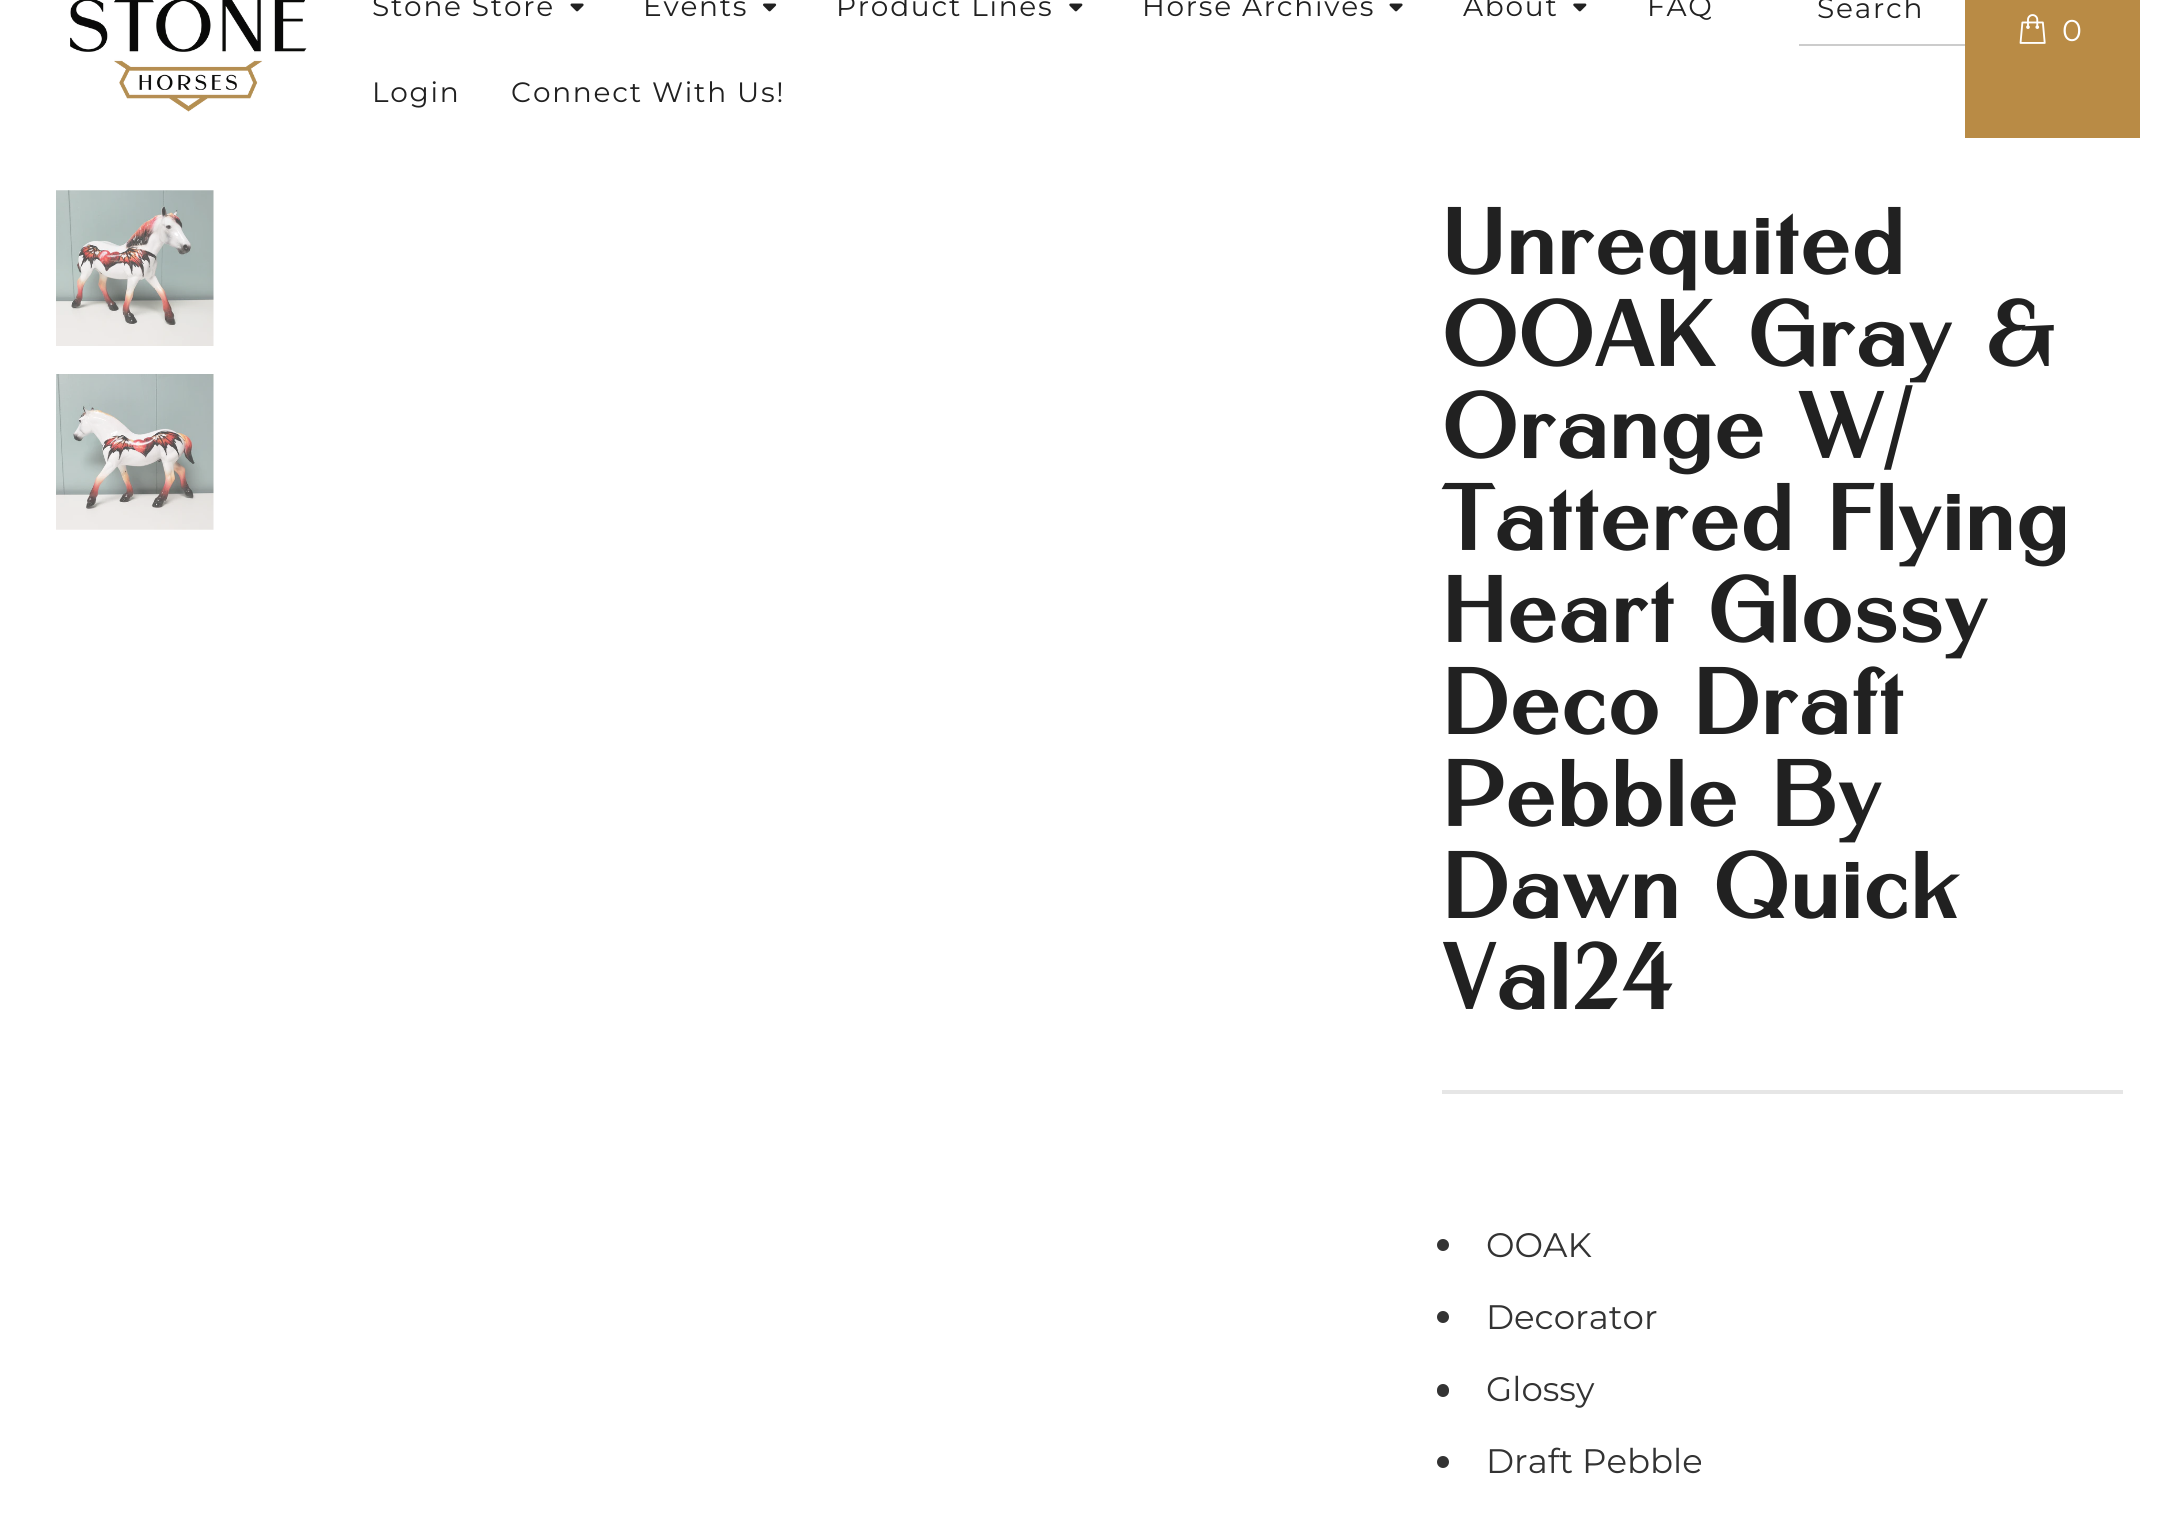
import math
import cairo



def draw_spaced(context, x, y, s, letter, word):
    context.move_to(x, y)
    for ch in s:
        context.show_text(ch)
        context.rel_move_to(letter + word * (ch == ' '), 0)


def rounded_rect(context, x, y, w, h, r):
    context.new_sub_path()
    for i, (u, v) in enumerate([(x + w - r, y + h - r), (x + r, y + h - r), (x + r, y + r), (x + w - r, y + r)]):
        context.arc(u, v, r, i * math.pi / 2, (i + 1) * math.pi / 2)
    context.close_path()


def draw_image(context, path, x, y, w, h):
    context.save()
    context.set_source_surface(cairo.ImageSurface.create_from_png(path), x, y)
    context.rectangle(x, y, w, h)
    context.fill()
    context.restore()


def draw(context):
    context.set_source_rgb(1, 1, 1)
    context.paint()
    draw_image(context, "images/1.png", 70, 0, 237, 112)
    draw_image(context, "images/2.png", 570, 3, 14, 9)
    draw_image(context, "images/3.png", 763, 3, 14, 9)
    draw_image(context, "images/4.png", 1069, 3, 14, 9)
    draw_image(context, "images/2.png", 1389, 3, 14, 9)
    draw_image(context, "images/4.png", 1573, 3, 14, 9)
    context.set_source_rgb(204 / 255, 204 / 255, 204 / 255)
    context.rectangle(1799, 44, 166, 2)
    context.fill()
    context.set_source_rgb(185 / 255, 139 / 255, 69 / 255)
    context.rectangle(1965, 0, 175, 138)
    context.fill()
    draw_image(context, "images/5.png", 2019, 14, 27, 30)
    draw_image(context, "images/6.png", 56, 190, 158, 156)
    draw_image(context, "images/7.png", 56, 374, 158, 156)
    context.set_source_rgb(230 / 255, 230 / 255, 230 / 255)
    context.rectangle(1442, 1090, 681, 4)
    context.fill()
    context.set_source_rgb(51 / 255, 51 / 255, 51 / 255)
    context.arc(1443, 1245, 6, 0, 2 * math.pi)
    context.fill()
    context.arc(1443, 1317, 6, 0, 2 * math.pi)
    context.fill()
    rounded_rect(context, 1437, 1384, 12, 13, 6)
    context.fill()
    context.arc(1443, 1462, 6, 0, 2 * math.pi)
    context.fill()
    context.select_font_face("Montserrat")
    context.set_font_size(28)
    context.set_source_rgb(33 / 255, 33 / 255, 33 / 255)
    draw_spaced(context, 372, 16, "Stone Store", 1.75, 0)
    draw_spaced(context, 643, 16, "Events", 1.75, 0)
    draw_spaced(context, 836, 16, "Product Lines", 1.75, 0)
    draw_spaced(context, 1142, 16, "Horse Archives", 1.75, 0)
    draw_spaced(context, 1463, 16, "About", 1.75, 0)
    draw_spaced(context, 1647, 16, "FAQ", 1.75, 0)
    draw_spaced(context, 372, 102, "Login", 1.75, 0)
    draw_spaced(context, 511, 102, "Connect With Us!", 1.75, 0)
    draw_spaced(context, 1817, 18, "Search", 1.75, 0)
    context.set_font_size(30)
    context.set_source_rgb(1, 1, 1)
    draw_spaced(context, 2062, 41, "0", 1.75, 0)
    context.select_font_face("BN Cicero", cairo.FontSlant.NORMAL, cairo.FontWeight.BOLD)
    context.set_font_size(92)
    context.set_source_rgb(33 / 255, 33 / 255, 33 / 255)
    draw_spaced(context, 1443, 274, "Unrequited", 3.5, 0)
    draw_spaced(context, 1443, 366, "OOAK Gray &", 3.5, 0)
    draw_spaced(context, 1443, 458, "Orange W/", 3.5, 0)
    draw_spaced(context, 1443, 550, "Tattered Flying", 3.5, 0)
    draw_spaced(context, 1443, 642, "Heart Glossy", 3.5, 0)
    draw_spaced(context, 1443, 734, "Deco Draft", 3.5, 0)
    draw_spaced(context, 1443, 826, "Pebble By", 3.5, 0)
    draw_spaced(context, 1443, 918, "Dawn Quick", 3.5, 0)
    draw_spaced(context, 1443, 1009, "Val24", 3.5, 0)
    context.select_font_face("Montserrat")
    context.set_font_size(34)
    context.set_source_rgb(51 / 255, 51 / 255, 51 / 255)
    context.move_to(1486, 1257)
    context.show_text("OOAK")
    context.move_to(1486, 1329)
    context.show_text("Decorator")
    context.move_to(1486, 1401)
    context.show_text("Glossy")
    context.move_to(1486, 1473)
    context.show_text("Draft Pebble")


surface = cairo.ImageSurface(cairo.Format.RGB24, 2175, 1518)
context = cairo.Context(surface)
options = cairo.FontOptions()
options.set_hint_metrics(cairo.HintMetrics.OFF)
options.set_hint_style(cairo.HintStyle.NONE)
context.set_font_options(options)
context.set_miter_limit(4)
draw(context)
surface.write_to_png("out.png")
